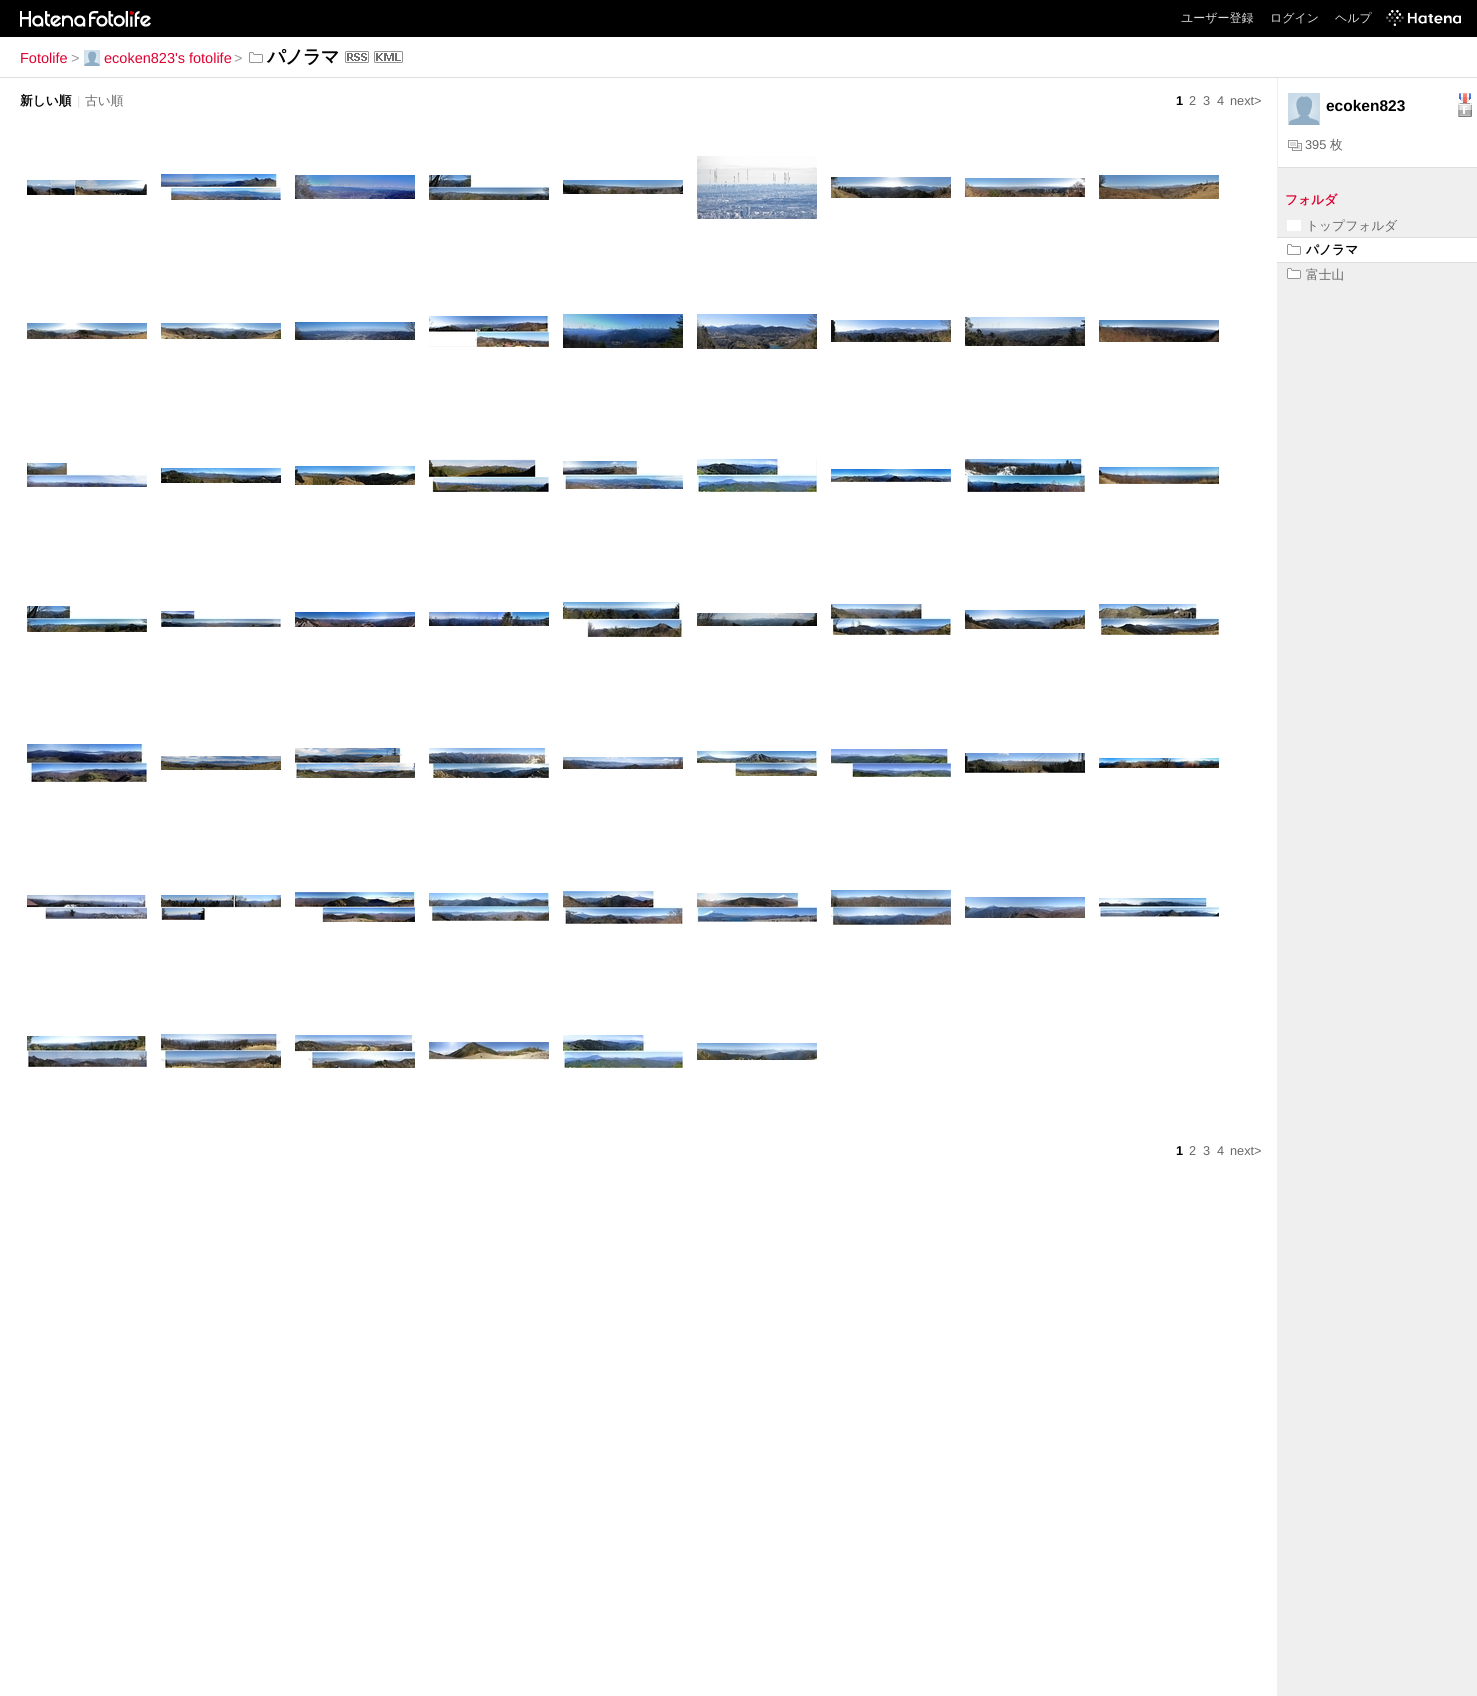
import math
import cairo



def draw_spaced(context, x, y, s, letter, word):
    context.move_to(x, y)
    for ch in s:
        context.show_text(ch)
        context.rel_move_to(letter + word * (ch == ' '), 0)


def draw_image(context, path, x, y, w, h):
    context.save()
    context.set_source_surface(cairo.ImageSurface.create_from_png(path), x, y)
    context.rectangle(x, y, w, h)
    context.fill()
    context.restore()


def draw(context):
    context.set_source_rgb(1, 1, 1)
    context.paint()
    context.set_source_rgb(239 / 255, 239 / 255, 239 / 255)
    context.rectangle(1277, 78, 200, 1618)
    context.fill()
    context.set_source_rgb(0, 0, 0)
    context.rectangle(0, 0, 1477, 37)
    context.fill()
    draw_image(context, "images/1.png", 20, 11, 66, 16)
    draw_image(context, "images/2.png", 89, 11, 62, 16)
    draw_image(context, "images/3.png", 1386, 10, 75, 16)
    context.set_source_rgb(222 / 255, 222 / 255, 222 / 255)
    context.rectangle(0, 77, 1477, 1)
    context.fill()
    draw_image(context, "images/4.png", 84, 50, 16, 16)
    draw_image(context, "images/5.png", 249, 52, 14, 11)
    draw_image(context, "images/6.png", 345, 51, 24, 12)
    draw_image(context, "images/7.png", 374, 51, 29, 12)
    draw_image(context, "images/8.png", 27, 180, 120, 15)
    draw_image(context, "images/9.png", 161, 174, 120, 26)
    draw_image(context, "images/10.png", 295, 175, 120, 24)
    draw_image(context, "images/11.png", 429, 175, 120, 25)
    draw_image(context, "images/12.png", 563, 180, 120, 14)
    draw_image(context, "images/13.png", 697, 156, 120, 63)
    draw_image(context, "images/14.png", 831, 177, 120, 21)
    draw_image(context, "images/15.png", 965, 178, 120, 19)
    draw_image(context, "images/16.png", 1099, 175, 120, 24)
    draw_image(context, "images/17.png", 27, 323, 120, 16)
    draw_image(context, "images/18.png", 161, 323, 120, 16)
    draw_image(context, "images/19.png", 295, 322, 120, 18)
    draw_image(context, "images/20.png", 429, 316, 120, 31)
    draw_image(context, "images/21.png", 563, 314, 120, 34)
    draw_image(context, "images/22.png", 697, 314, 120, 35)
    draw_image(context, "images/23.png", 831, 320, 120, 22)
    draw_image(context, "images/24.png", 965, 317, 120, 29)
    draw_image(context, "images/25.png", 1099, 320, 120, 22)
    draw_image(context, "images/26.png", 27, 463, 120, 24)
    draw_image(context, "images/27.png", 161, 468, 120, 15)
    draw_image(context, "images/28.png", 295, 466, 120, 19)
    draw_image(context, "images/29.png", 429, 459, 120, 33)
    draw_image(context, "images/30.png", 563, 461, 120, 28)
    draw_image(context, "images/31.png", 697, 459, 120, 33)
    draw_image(context, "images/32.png", 831, 469, 120, 13)
    draw_image(context, "images/33.png", 965, 459, 120, 33)
    draw_image(context, "images/34.png", 1099, 467, 120, 17)
    draw_image(context, "images/35.png", 27, 606, 120, 26)
    draw_image(context, "images/36.png", 161, 611, 120, 16)
    draw_image(context, "images/37.png", 295, 612, 120, 15)
    draw_image(context, "images/38.png", 429, 612, 120, 14)
    draw_image(context, "images/39.png", 563, 602, 120, 35)
    draw_image(context, "images/40.png", 697, 613, 120, 13)
    draw_image(context, "images/41.png", 831, 604, 120, 31)
    draw_image(context, "images/42.png", 965, 610, 120, 19)
    draw_image(context, "images/43.png", 1099, 604, 120, 31)
    draw_image(context, "images/44.png", 27, 744, 120, 38)
    draw_image(context, "images/45.png", 161, 756, 120, 14)
    draw_image(context, "images/46.png", 295, 748, 120, 30)
    draw_image(context, "images/47.png", 429, 748, 120, 30)
    draw_image(context, "images/48.png", 563, 757, 120, 12)
    draw_image(context, "images/49.png", 697, 751, 120, 25)
    draw_image(context, "images/50.png", 831, 749, 120, 28)
    draw_image(context, "images/51.png", 965, 753, 120, 20)
    draw_image(context, "images/52.png", 1099, 758, 120, 10)
    draw_image(context, "images/53.png", 27, 895, 120, 24)
    draw_image(context, "images/54.png", 161, 895, 120, 25)
    draw_image(context, "images/55.png", 295, 892, 120, 30)
    draw_image(context, "images/56.png", 429, 893, 120, 28)
    draw_image(context, "images/57.png", 563, 891, 120, 33)
    draw_image(context, "images/58.png", 697, 893, 120, 29)
    draw_image(context, "images/59.png", 831, 890, 120, 35)
    draw_image(context, "images/60.png", 965, 897, 120, 21)
    draw_image(context, "images/61.png", 1099, 898, 120, 19)
    draw_image(context, "images/62.png", 27, 1036, 120, 31)
    draw_image(context, "images/63.png", 161, 1034, 120, 34)
    draw_image(context, "images/64.png", 295, 1035, 120, 33)
    draw_image(context, "images/65.png", 429, 1042, 120, 18)
    draw_image(context, "images/66.png", 563, 1035, 120, 33)
    draw_image(context, "images/67.png", 697, 1043, 120, 17)
    context.set_source_rgb(1, 1, 1)
    context.rectangle(1278, 78, 199, 89)
    context.fill()
    context.set_source_rgb(222 / 255, 222 / 255, 222 / 255)
    context.rectangle(1278, 167, 199, 1)
    context.fill()
    draw_image(context, "images/68.png", 1288, 93, 32, 32)
    draw_image(context, "images/69.png", 1458, 93, 14, 24)
    draw_image(context, "images/70.png", 1288, 140, 14, 11)
    context.set_source_rgb(1, 1, 1)
    context.rectangle(1287, 220, 14, 11)
    context.fill()
    context.rectangle(1277, 238, 200, 24)
    context.fill()
    context.set_source_rgb(222 / 255, 222 / 255, 222 / 255)
    context.rectangle(1277, 237, 200, 1)
    context.fill()
    context.rectangle(1277, 262, 200, 1)
    context.fill()
    draw_image(context, "images/5.png", 1287, 244, 14, 11)
    draw_image(context, "images/71.png", 1287, 268, 14, 11)
    context.select_font_face("WenQuanYi Zen Hei Medium")
    context.set_font_size(12)
    context.move_to(1181, 22)
    context.show_text("ユーザー登録")
    context.move_to(1270, 22)
    context.show_text("ログイン")
    context.move_to(1335, 22)
    context.show_text("ヘルプ")
    context.select_font_face("Liberation Sans")
    context.set_font_size(14.5)
    context.set_source_rgb(222 / 255, 0, 47 / 255)
    context.move_to(20, 63)
    context.show_text("Fotolife")
    context.set_source_rgb(153 / 255, 153 / 255, 153 / 255)
    context.move_to(71, 63)
    context.show_text(">")
    context.set_source_rgb(222 / 255, 0, 47 / 255)
    context.move_to(104, 63)
    context.show_text("ecoken823's fotolife")
    context.set_source_rgb(153 / 255, 153 / 255, 153 / 255)
    context.move_to(234, 63)
    context.show_text(">")
    context.select_font_face("WenQuanYi Zen Hei", cairo.FontSlant.NORMAL, cairo.FontWeight.BOLD)
    context.set_font_size(18.5)
    context.set_source_rgb(0, 0, 0)
    draw_spaced(context, 267, 63, "パノラマ", -1, 0)
    context.set_font_size(12.75)
    context.move_to(20, 105)
    context.show_text("新しい順")
    context.select_font_face("Liberation Sans")
    context.set_source_rgb(222 / 255, 222 / 255, 222 / 255)
    context.move_to(77, 105)
    context.show_text("|")
    context.select_font_face("WenQuanYi Zen Hei Medium")
    context.set_source_rgb(102 / 255, 102 / 255, 102 / 255)
    context.move_to(85, 105)
    context.show_text("古い順")
    context.select_font_face("Liberation Sans", cairo.FontSlant.NORMAL, cairo.FontWeight.BOLD)
    context.set_source_rgb(0, 0, 0)
    context.move_to(1176, 105)
    context.show_text("1")
    context.select_font_face("Liberation Sans")
    context.set_source_rgb(102 / 255, 102 / 255, 102 / 255)
    context.move_to(1189, 105)
    context.show_text("2")
    context.move_to(1203, 105)
    context.show_text("3")
    context.move_to(1217, 105)
    context.show_text("4")
    context.move_to(1230, 105)
    context.show_text("next>")
    context.select_font_face("Liberation Sans", cairo.FontSlant.NORMAL, cairo.FontWeight.BOLD)
    context.set_source_rgb(0, 0, 0)
    context.move_to(1176, 1155)
    context.show_text("1")
    context.select_font_face("Liberation Sans")
    context.set_source_rgb(102 / 255, 102 / 255, 102 / 255)
    context.move_to(1189, 1155)
    context.show_text("2")
    context.move_to(1203, 1155)
    context.show_text("3")
    context.move_to(1217, 1155)
    context.show_text("4")
    context.move_to(1230, 1155)
    context.show_text("next>")
    context.select_font_face("Liberation Sans", cairo.FontSlant.NORMAL, cairo.FontWeight.BOLD)
    context.set_font_size(15.5)
    context.set_source_rgb(0, 0, 0)
    context.move_to(1326, 111)
    context.show_text("ecoken823")
    context.select_font_face("Liberation Sans")
    context.set_font_size(12.75)
    context.set_source_rgb(102 / 255, 102 / 255, 102 / 255)
    context.move_to(1305, 149)
    context.show_text("395")
    context.select_font_face("WenQuanYi Zen Hei Medium")
    context.move_to(1330, 149)
    context.show_text("枚")
    context.select_font_face("WenQuanYi Zen Hei", cairo.FontSlant.NORMAL, cairo.FontWeight.BOLD)
    context.set_source_rgb(222 / 255, 0, 47 / 255)
    context.move_to(1285, 204)
    context.show_text("フォルダ")
    context.select_font_face("WenQuanYi Zen Hei Medium")
    context.set_source_rgb(102 / 255, 102 / 255, 102 / 255)
    context.move_to(1306, 230)
    context.show_text("トップフォルダ")
    context.select_font_face("WenQuanYi Zen Hei", cairo.FontSlant.NORMAL, cairo.FontWeight.BOLD)
    context.set_source_rgb(0, 0, 0)
    context.move_to(1306, 254)
    context.show_text("パノラマ")
    context.select_font_face("WenQuanYi Zen Hei Medium")
    context.set_source_rgb(102 / 255, 102 / 255, 102 / 255)
    context.move_to(1306, 279)
    context.show_text("富士山")


surface = cairo.ImageSurface(cairo.Format.RGB24, 1477, 1696)
context = cairo.Context(surface)
options = cairo.FontOptions()
options.set_hint_metrics(cairo.HintMetrics.OFF)
options.set_hint_style(cairo.HintStyle.NONE)
context.set_font_options(options)
context.set_miter_limit(4)
draw(context)
surface.write_to_png("out.png")
